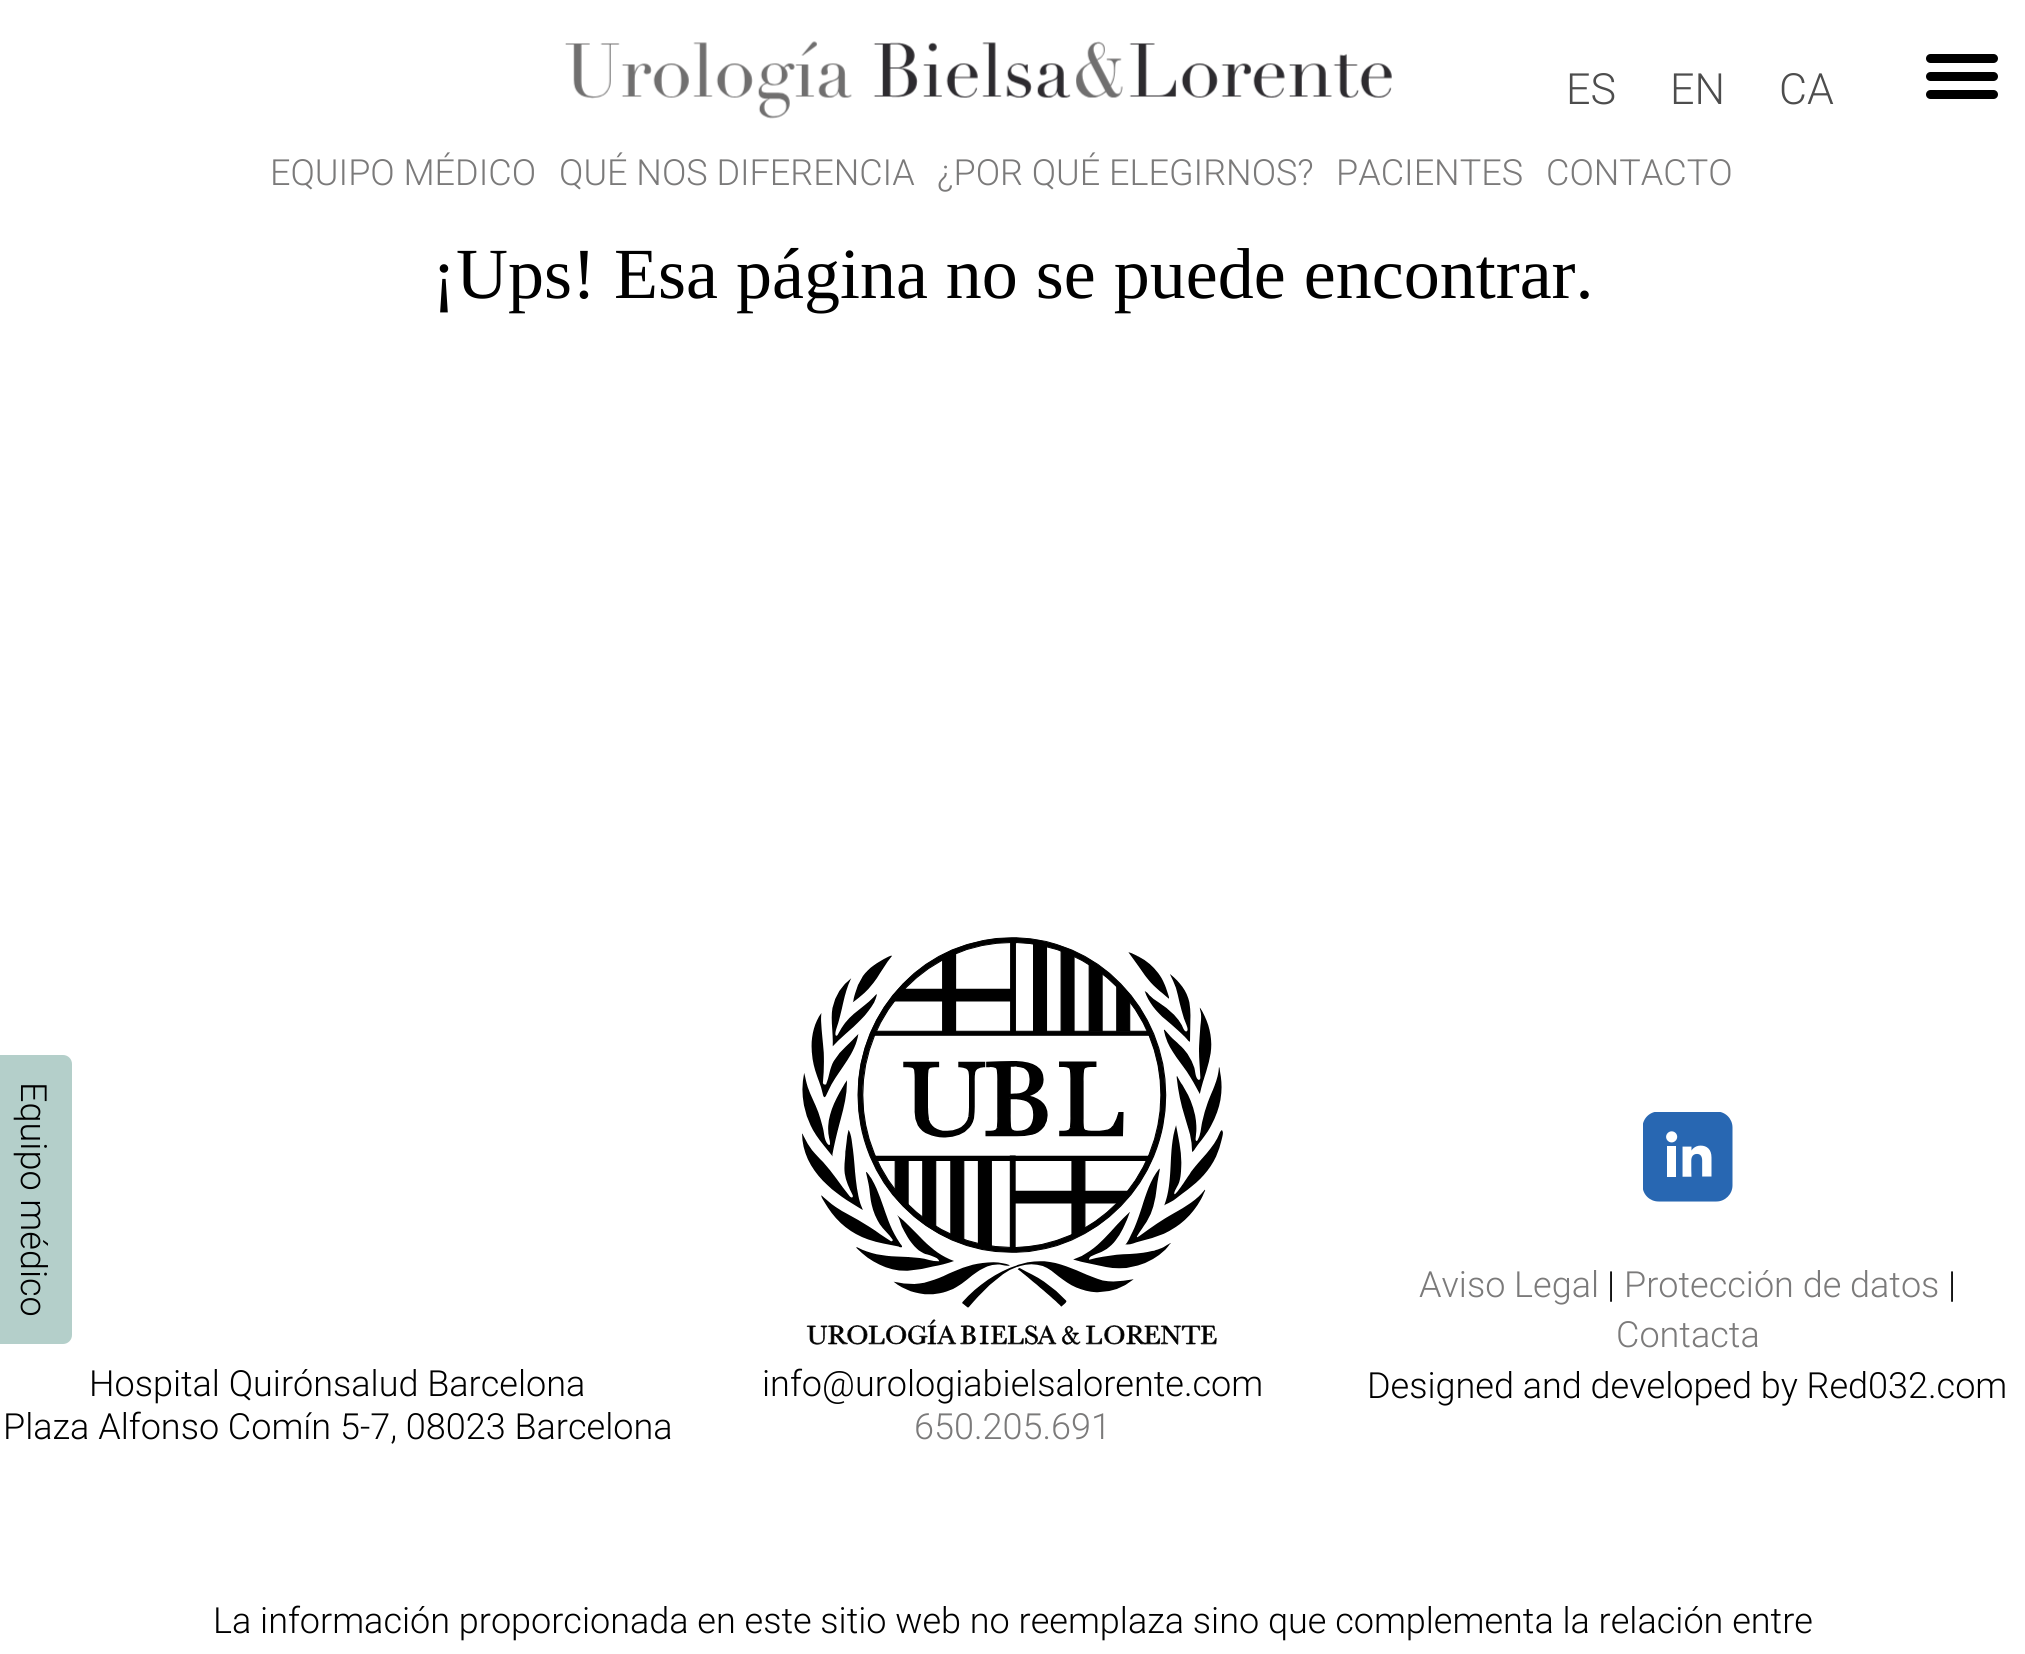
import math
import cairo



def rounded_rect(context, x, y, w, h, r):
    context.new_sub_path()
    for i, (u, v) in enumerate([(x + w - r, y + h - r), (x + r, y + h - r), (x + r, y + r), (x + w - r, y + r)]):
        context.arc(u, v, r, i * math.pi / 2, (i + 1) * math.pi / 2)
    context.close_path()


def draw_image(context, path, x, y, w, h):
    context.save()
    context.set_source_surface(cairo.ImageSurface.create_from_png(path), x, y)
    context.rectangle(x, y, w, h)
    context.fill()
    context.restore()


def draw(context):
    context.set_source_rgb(1, 1, 1)
    context.paint()
    draw_image(context, "images/1.png", 565, 41, 827, 78)
    context.set_source_rgb(0, 0, 0)
    rounded_rect(context, 1926, 54, 72, 9, 4.5)
    context.fill()
    rounded_rect(context, 1926, 72, 72, 9, 4.5)
    context.fill()
    rounded_rect(context, 1926, 90, 72, 9, 4.5)
    context.fill()
    draw_image(context, "images/2.png", 802, 937, 421, 408)
    draw_image(context, "images/3.png", 1643, 1112, 90, 90)
    context.set_source_rgb(180 / 255, 207 / 255, 202 / 255)
    context.new_path()
    context.move_to(72, 1064)
    context.line_to(72, 1335)
    context.curve_to(72, 1340, 68, 1344, 63, 1344)
    context.line_to(0, 1344)
    context.curve_to(-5, 1344, -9, 1340, -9, 1335)
    context.line_to(-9, 1064)
    context.curve_to(-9, 1059, -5, 1055, 0, 1055)
    context.line_to(63, 1055)
    context.curve_to(68, 1055, 72, 1059, 72, 1064)
    context.close_path()
    context.fill()
    context.select_font_face("Roboto Light")
    context.set_font_size(43)
    context.set_source_rgb(77 / 255, 77 / 255, 77 / 255)
    context.move_to(1566, 104)
    context.show_text("ES")
    context.move_to(1670, 104)
    context.show_text("EN")
    context.move_to(1779, 104)
    context.show_text("CA")
    context.set_font_size(36)
    context.set_source_rgb(123 / 255, 122 / 255, 122 / 255)
    context.move_to(270, 185)
    context.show_text("EQUIPO MÉDICO")
    context.move_to(559, 185)
    context.show_text("QUÉ NOS DIFERENCIA")
    context.move_to(937, 185)
    context.show_text("¿POR QUÉ ELEGIRNOS?")
    context.move_to(1336, 185)
    context.show_text("PACIENTES")
    context.move_to(1546, 185)
    context.show_text("CONTACTO")
    context.select_font_face("Liberation Serif")
    context.set_font_size(72)
    context.set_source_rgb(0, 0, 0)
    context.move_to(432, 298)
    context.show_text("¡Ups! Esa página no se puede encontrar.")
    context.select_font_face("Roboto Light")
    context.set_font_size(36)
    context.move_to(89, 1396)
    context.show_text("Hospital Quirónsalud Barcelona")
    context.move_to(3, 1439)
    context.show_text("Plaza Alfonso Comín 5-7, 08023 Barcelona")
    context.move_to(762, 1396)
    context.show_text("info@urologiabielsalorente.com")
    context.set_source_rgb(123 / 255, 122 / 255, 122 / 255)
    context.move_to(914, 1439)
    context.show_text("650.205.691")
    context.move_to(1419, 1297)
    context.show_text("Aviso Legal")
    context.set_source_rgb(0, 0, 0)
    context.move_to(1607, 1297)
    context.show_text("|")
    context.set_source_rgb(123 / 255, 122 / 255, 122 / 255)
    context.move_to(1624, 1297)
    context.show_text("Protección de datos")
    context.set_source_rgb(0, 0, 0)
    context.move_to(1948, 1297)
    context.show_text("|")
    context.set_source_rgb(123 / 255, 122 / 255, 122 / 255)
    context.move_to(1616, 1347)
    context.show_text("Contacta")
    context.set_source_rgb(0, 0, 0)
    context.move_to(1367, 1398)
    context.show_text("Designed and developed by Red032.com")
    context.move_to(213, 1633)
    context.show_text("La información proporcionada en este sitio web no reemplaza sino que complementa la relación entre")
    context.save()
    context.translate(21, 1082)
    context.rotate(90 * math.pi / 180)
    context.move_to(0, 0)
    context.show_text("Equipo médico")
    context.restore()


surface = cairo.ImageSurface(cairo.Format.RGB24, 2025, 1654)
context = cairo.Context(surface)
options = cairo.FontOptions()
options.set_hint_metrics(cairo.HintMetrics.OFF)
options.set_hint_style(cairo.HintStyle.NONE)
context.set_font_options(options)
context.set_miter_limit(4)
draw(context)
surface.write_to_png("out.png")
